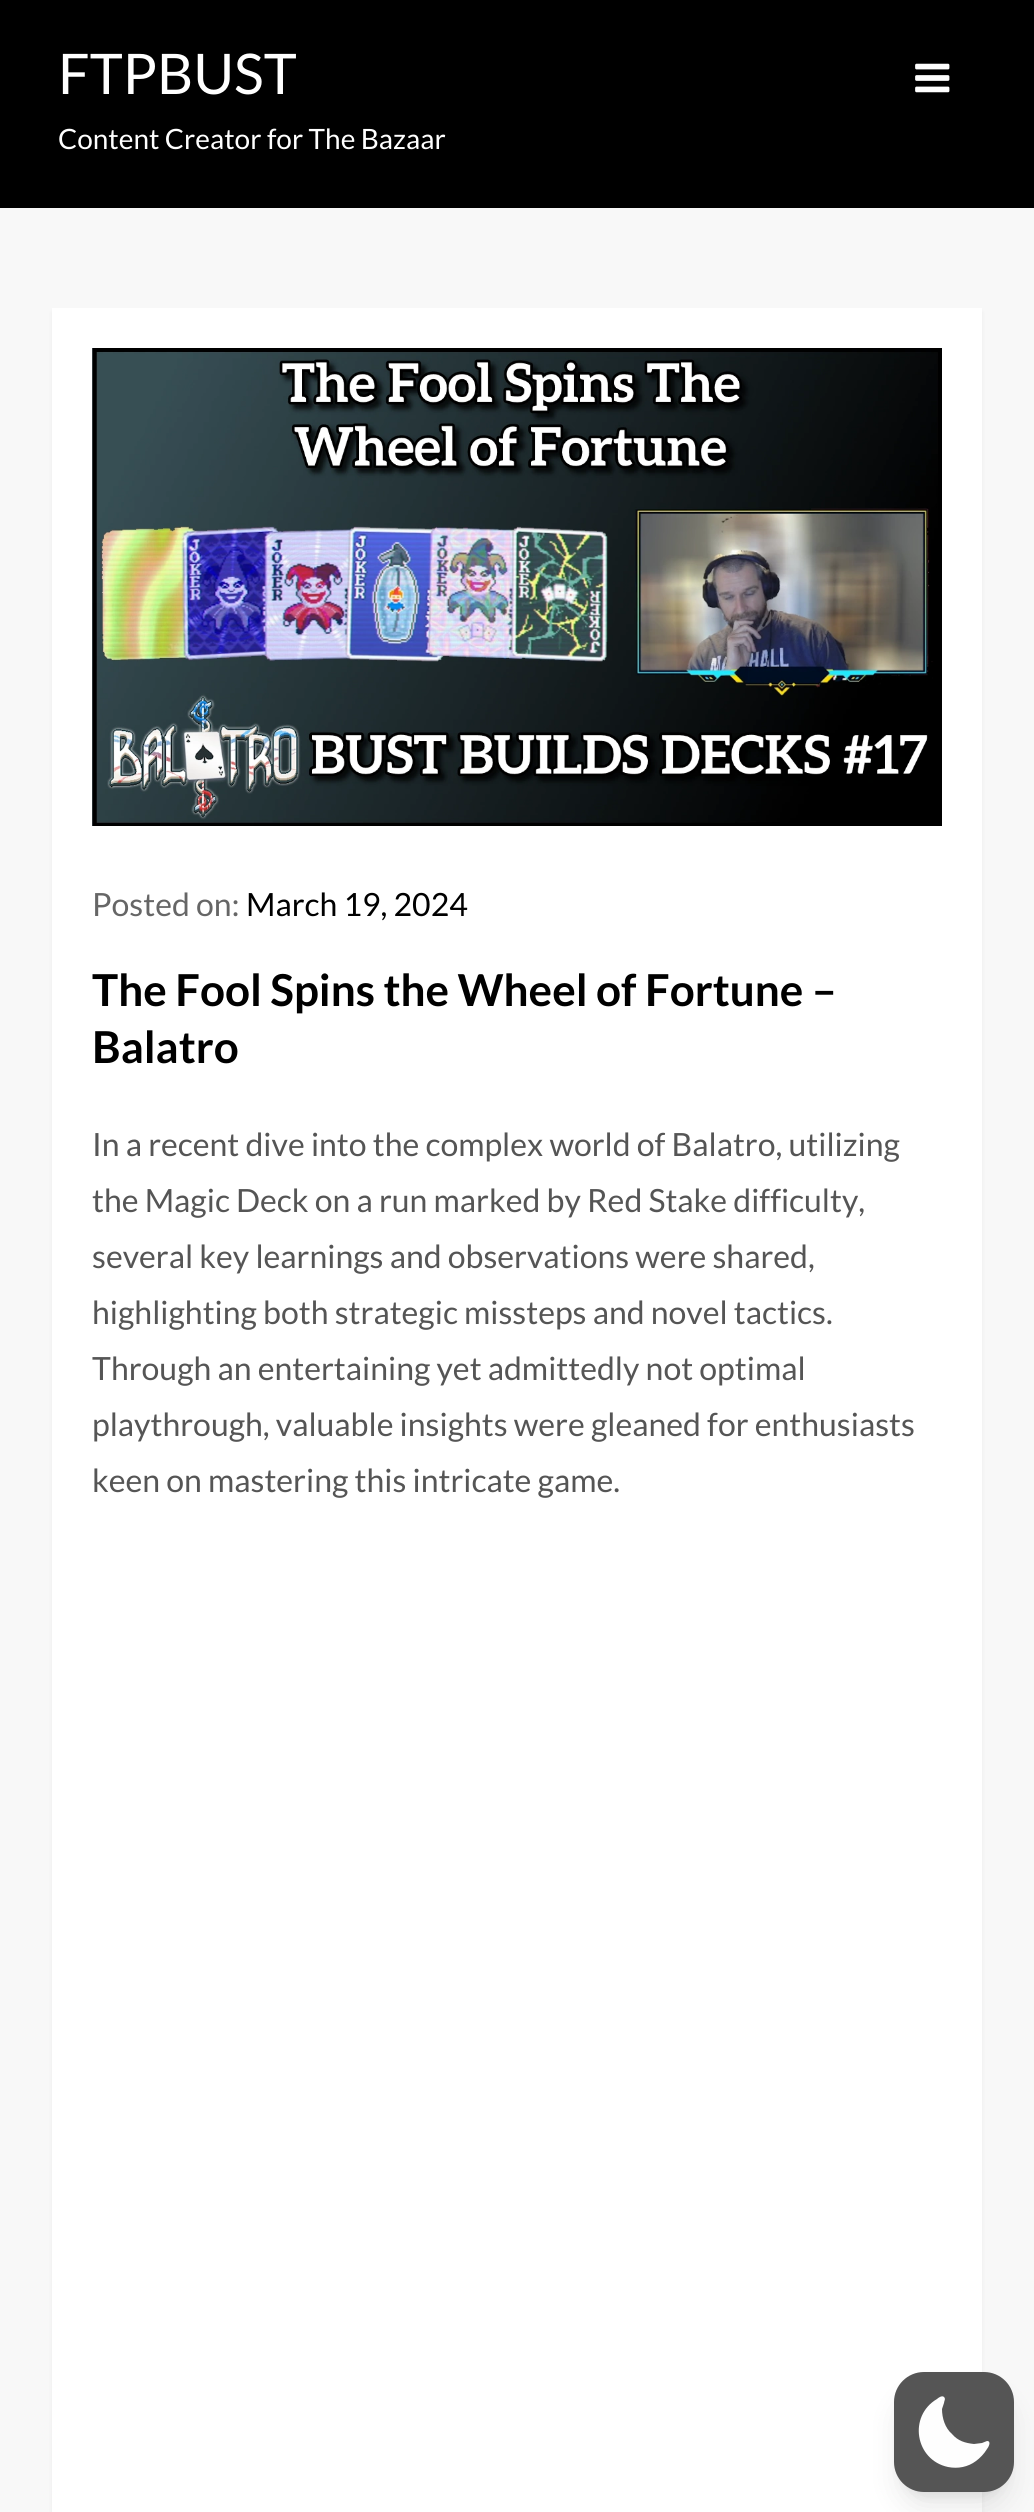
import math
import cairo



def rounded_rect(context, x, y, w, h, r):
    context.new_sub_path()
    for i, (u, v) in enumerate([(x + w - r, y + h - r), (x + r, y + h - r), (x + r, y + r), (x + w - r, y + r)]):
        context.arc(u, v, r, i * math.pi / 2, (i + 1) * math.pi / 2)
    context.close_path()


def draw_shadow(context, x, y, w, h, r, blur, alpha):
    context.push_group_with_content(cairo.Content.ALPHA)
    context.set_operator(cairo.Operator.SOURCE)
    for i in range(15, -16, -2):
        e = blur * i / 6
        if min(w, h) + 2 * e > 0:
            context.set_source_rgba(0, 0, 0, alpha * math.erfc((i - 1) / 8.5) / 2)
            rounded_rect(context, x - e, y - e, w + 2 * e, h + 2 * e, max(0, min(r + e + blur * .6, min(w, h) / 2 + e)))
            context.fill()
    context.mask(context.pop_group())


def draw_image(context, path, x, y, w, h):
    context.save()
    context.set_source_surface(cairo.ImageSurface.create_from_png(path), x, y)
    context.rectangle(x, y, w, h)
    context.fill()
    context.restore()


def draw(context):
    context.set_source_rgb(248 / 255, 248 / 255, 248 / 255)
    context.paint()
    context.set_source_rgb(0, 0, 0)
    context.rectangle(0, 0, 1034, 208)
    context.fill()
    draw_image(context, "images/1.png", 915, 63, 35, 30)
    context.set_source_rgb(0, 0, 0)
    draw_shadow(context, 52, 312, 930, 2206, 0, 2, 0.06)
    context.set_source_rgb(1, 1, 1)
    context.rectangle(52, 308, 930, 2204)
    context.fill()
    draw_image(context, "images/2.png", 92, 348, 850, 478)
    context.set_source_rgb(0, 0, 0)
    draw_shadow(context, 902, 2388, 104, 104, 22, 6, 0.1)
    draw_shadow(context, 900, 2398, 108, 108, 24, 15, 0.1)
    context.set_source_rgb(85 / 255, 85 / 255, 85 / 255)
    rounded_rect(context, 894, 2372, 120, 120, 30)
    context.fill()
    context.set_source_rgb(254 / 255, 254 / 255, 254 / 255)
    context.set_fill_rule(cairo.FillRule.EVEN_ODD)
    context.new_path()
    context.move_to(944, 2397)
    context.curve_to(946, 2399, 944, 2401, 944, 2403)
    context.line_to(942, 2409)
    context.curve_to(942, 2418, 945, 2428, 952, 2434)
    context.curve_to(958, 2441, 965, 2443, 974, 2444)
    context.line_to(982, 2443)
    context.line_to(987, 2441)
    context.curve_to(992, 2441, 988, 2448, 987, 2449)
    context.curve_to(984, 2454, 980, 2458, 976, 2461)
    context.curve_to(968, 2467, 958, 2469, 948, 2467)
    context.curve_to(915, 2460, 908, 2416, 937, 2399)
    context.curve_to(938, 2398, 942, 2395, 944, 2397)
    context.close_path()
    context.fill()
    context.select_font_face("Lato")
    context.set_font_size(56)
    context.set_source_rgb(1, 1, 1)
    context.move_to(58, 94)
    context.show_text("FTPBUST")
    context.set_font_size(28)
    context.move_to(58, 149)
    context.show_text("Content Creator for The Bazaar")
    context.set_font_size(32)
    context.set_source_rgb(102 / 255, 102 / 255, 102 / 255)
    context.move_to(92, 916)
    context.show_text("Posted on:")
    context.set_source_rgb(0, 0, 0)
    context.move_to(246, 916)
    context.show_text("March 19, 2024")
    context.select_font_face("Lato", cairo.FontSlant.NORMAL, cairo.FontWeight.BOLD)
    context.set_font_size(44)
    context.move_to(92, 1006)
    context.show_text("The Fool Spins the Wheel of Fortune –")
    context.move_to(92, 1063)
    context.show_text("Balatro")
    context.select_font_face("Lato")
    context.set_font_size(32)
    context.set_source_rgb(85 / 255, 85 / 255, 85 / 255)
    context.move_to(92, 1156)
    context.show_text("In a recent dive into the complex world of Balatro, utilizing")
    context.move_to(92, 1212)
    context.show_text("the Magic Deck on a run marked by Red Stake difficulty,")
    context.move_to(92, 1268)
    context.show_text("several key learnings and observations were shared,")
    context.move_to(92, 1324)
    context.show_text("highlighting both strategic missteps and novel tactics.")
    context.move_to(92, 1380)
    context.show_text("Through an entertaining yet admittedly not optimal")
    context.move_to(92, 1436)
    context.show_text("playthrough, valuable insights were gleaned for enthusiasts")
    context.move_to(92, 1492)
    context.show_text("keen on mastering this intricate game.")


surface = cairo.ImageSurface(cairo.Format.RGB24, 1034, 2512)
context = cairo.Context(surface)
options = cairo.FontOptions()
options.set_hint_metrics(cairo.HintMetrics.OFF)
options.set_hint_style(cairo.HintStyle.NONE)
context.set_font_options(options)
context.set_miter_limit(4)
draw(context)
surface.write_to_png("out.png")
